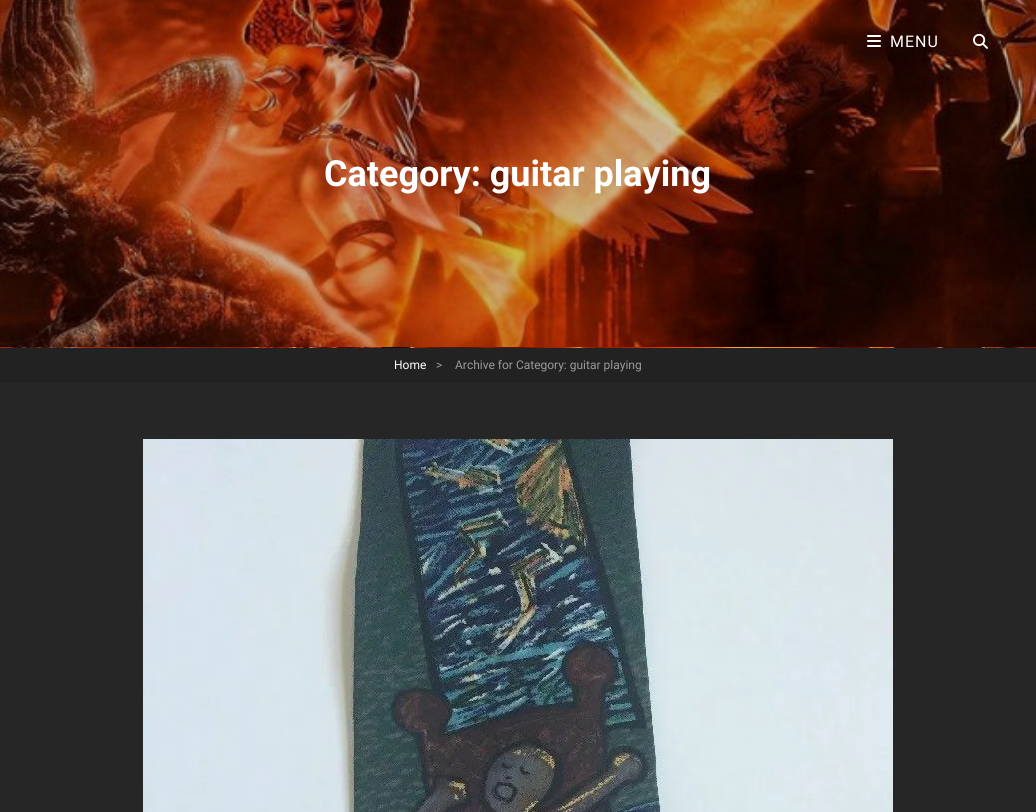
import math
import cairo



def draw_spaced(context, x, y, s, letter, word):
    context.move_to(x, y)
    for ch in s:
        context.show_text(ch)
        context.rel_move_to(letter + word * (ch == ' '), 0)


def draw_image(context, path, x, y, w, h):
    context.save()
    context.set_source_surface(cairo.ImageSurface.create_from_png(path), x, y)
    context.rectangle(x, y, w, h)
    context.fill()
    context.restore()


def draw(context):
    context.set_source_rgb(38 / 255, 38 / 255, 38 / 255)
    context.paint()
    draw_image(context, "images/3.png", 0, 0, 1036, 347)
    draw_image(context, "images/1.png", 867, 35, 14, 12)
    draw_image(context, "images/2.png", 973, 33, 15, 16)
    draw_image(context, "images/4.png", 0, 347, 1036, 1)
    context.set_source_rgb(34 / 255, 34 / 255, 34 / 255)
    context.rectangle(0, 348, 1036, 35)
    context.fill()
    draw_image(context, "images/5.png", 143, 439, 750, 373)
    context.select_font_face("Roboto")
    context.set_font_size(16)
    context.set_source_rgb(1, 1, 1)
    draw_spaced(context, 890, 47, "MENU", 1, 0)
    context.select_font_face("Roboto", cairo.FontSlant.NORMAL, cairo.FontWeight.BOLD)
    context.set_font_size(36)
    context.move_to(324, 186)
    context.show_text("Category: guitar playing")
    context.select_font_face("Roboto")
    context.set_font_size(12)
    context.move_to(394, 369)
    context.show_text("Home")
    context.set_source_rgb(153 / 255, 153 / 255, 153 / 255)
    context.move_to(436, 369)
    context.show_text(">")
    context.move_to(455, 369)
    context.show_text("Archive for Category: guitar playing")


surface = cairo.ImageSurface(cairo.Format.RGB24, 1036, 812)
context = cairo.Context(surface)
options = cairo.FontOptions()
options.set_hint_metrics(cairo.HintMetrics.OFF)
options.set_hint_style(cairo.HintStyle.NONE)
context.set_font_options(options)
context.set_miter_limit(4)
draw(context)
surface.write_to_png("out.png")
